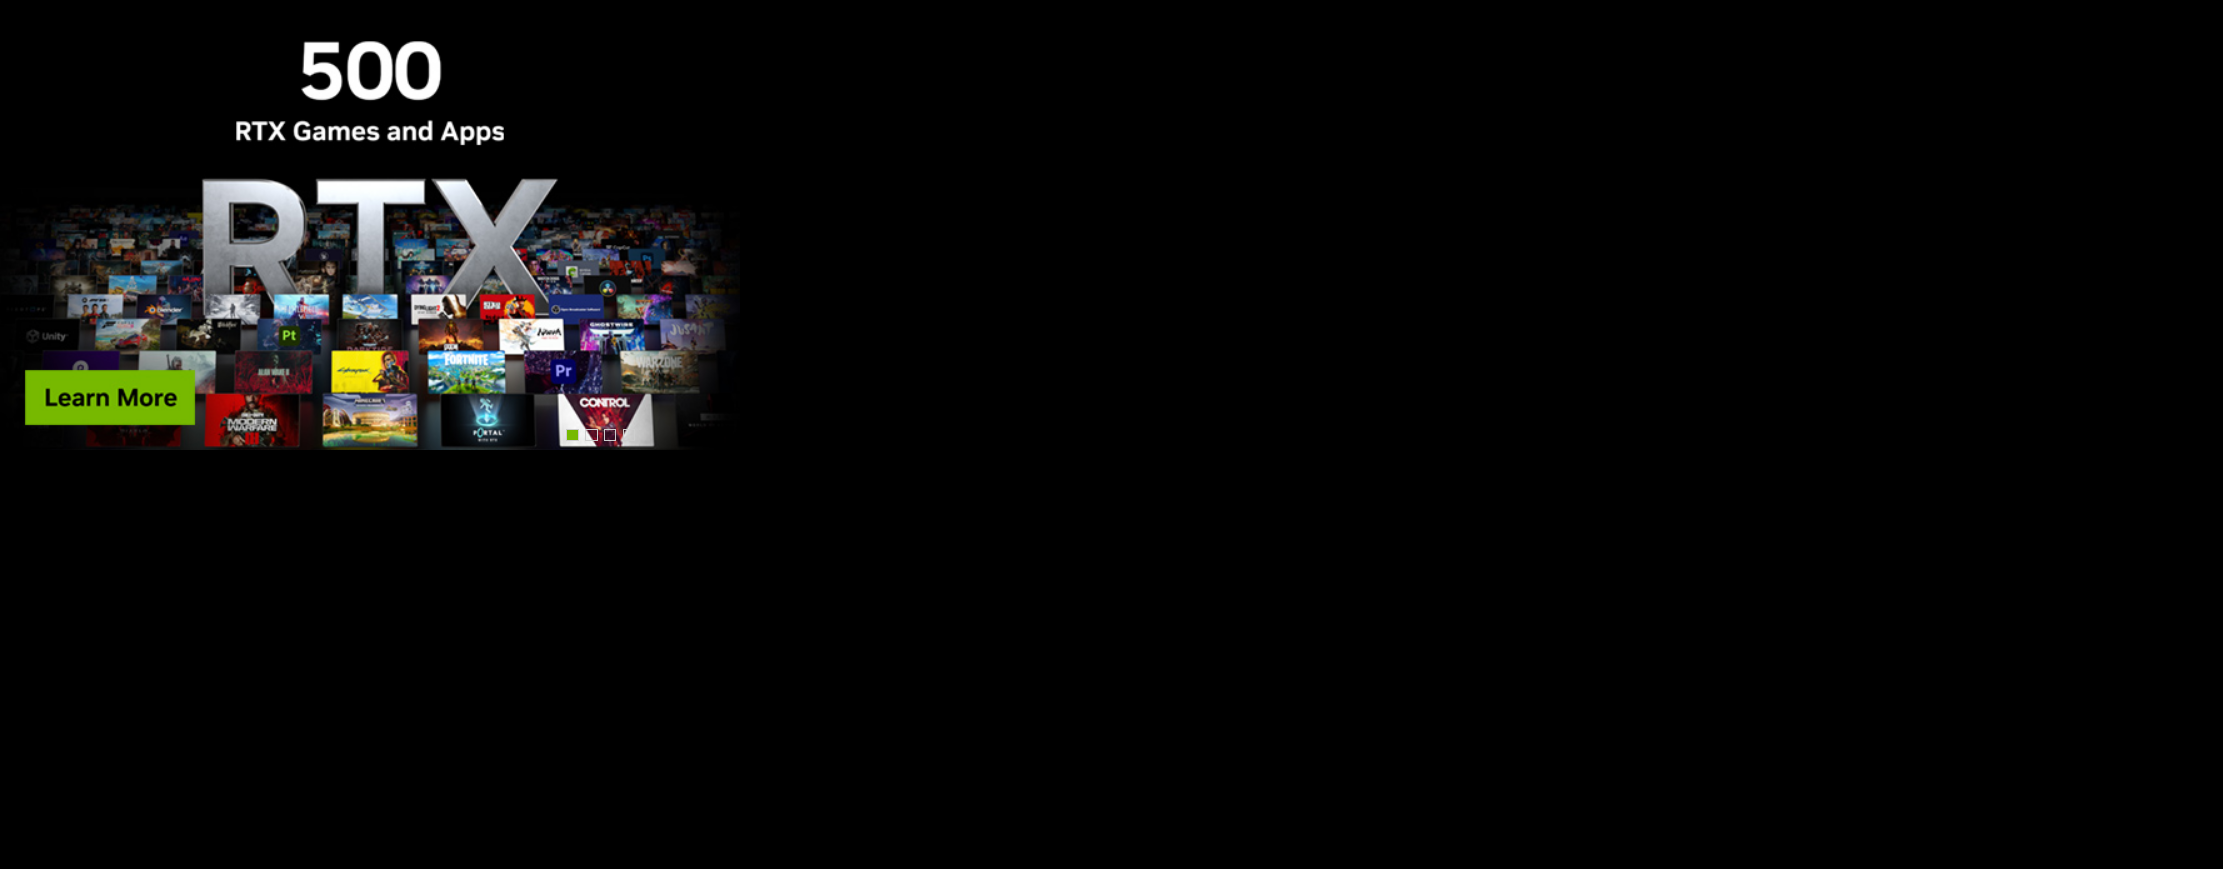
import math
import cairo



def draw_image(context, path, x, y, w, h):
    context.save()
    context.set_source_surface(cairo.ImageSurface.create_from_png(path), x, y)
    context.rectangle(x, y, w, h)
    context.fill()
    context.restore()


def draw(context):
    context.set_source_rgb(0, 0, 0)
    context.paint()
    draw_image(context, "images/1.png", 0, 41, 740, 409)
    context.set_source_rgb(118 / 255, 185 / 255, 0)
    context.rectangle(566.5, 429.5, 12, 11)
    context.fill_preserve()
    context.set_source_rgb(206 / 255, 206 / 255, 206 / 255)
    context.set_line_width(1)
    context.stroke()
    context.rectangle(585.5, 429.5, 12, 11)
    context.stroke()
    context.rectangle(604.5, 429.5, 11, 11)
    context.stroke()
    context.rectangle(623.5, 429.5, 11, 11)
    context.stroke()


surface = cairo.ImageSurface(cairo.Format.RGB24, 2223, 869)
context = cairo.Context(surface)
options = cairo.FontOptions()
options.set_hint_metrics(cairo.HintMetrics.OFF)
options.set_hint_style(cairo.HintStyle.NONE)
context.set_font_options(options)
context.set_miter_limit(4)
draw(context)
surface.write_to_png("out.png")
